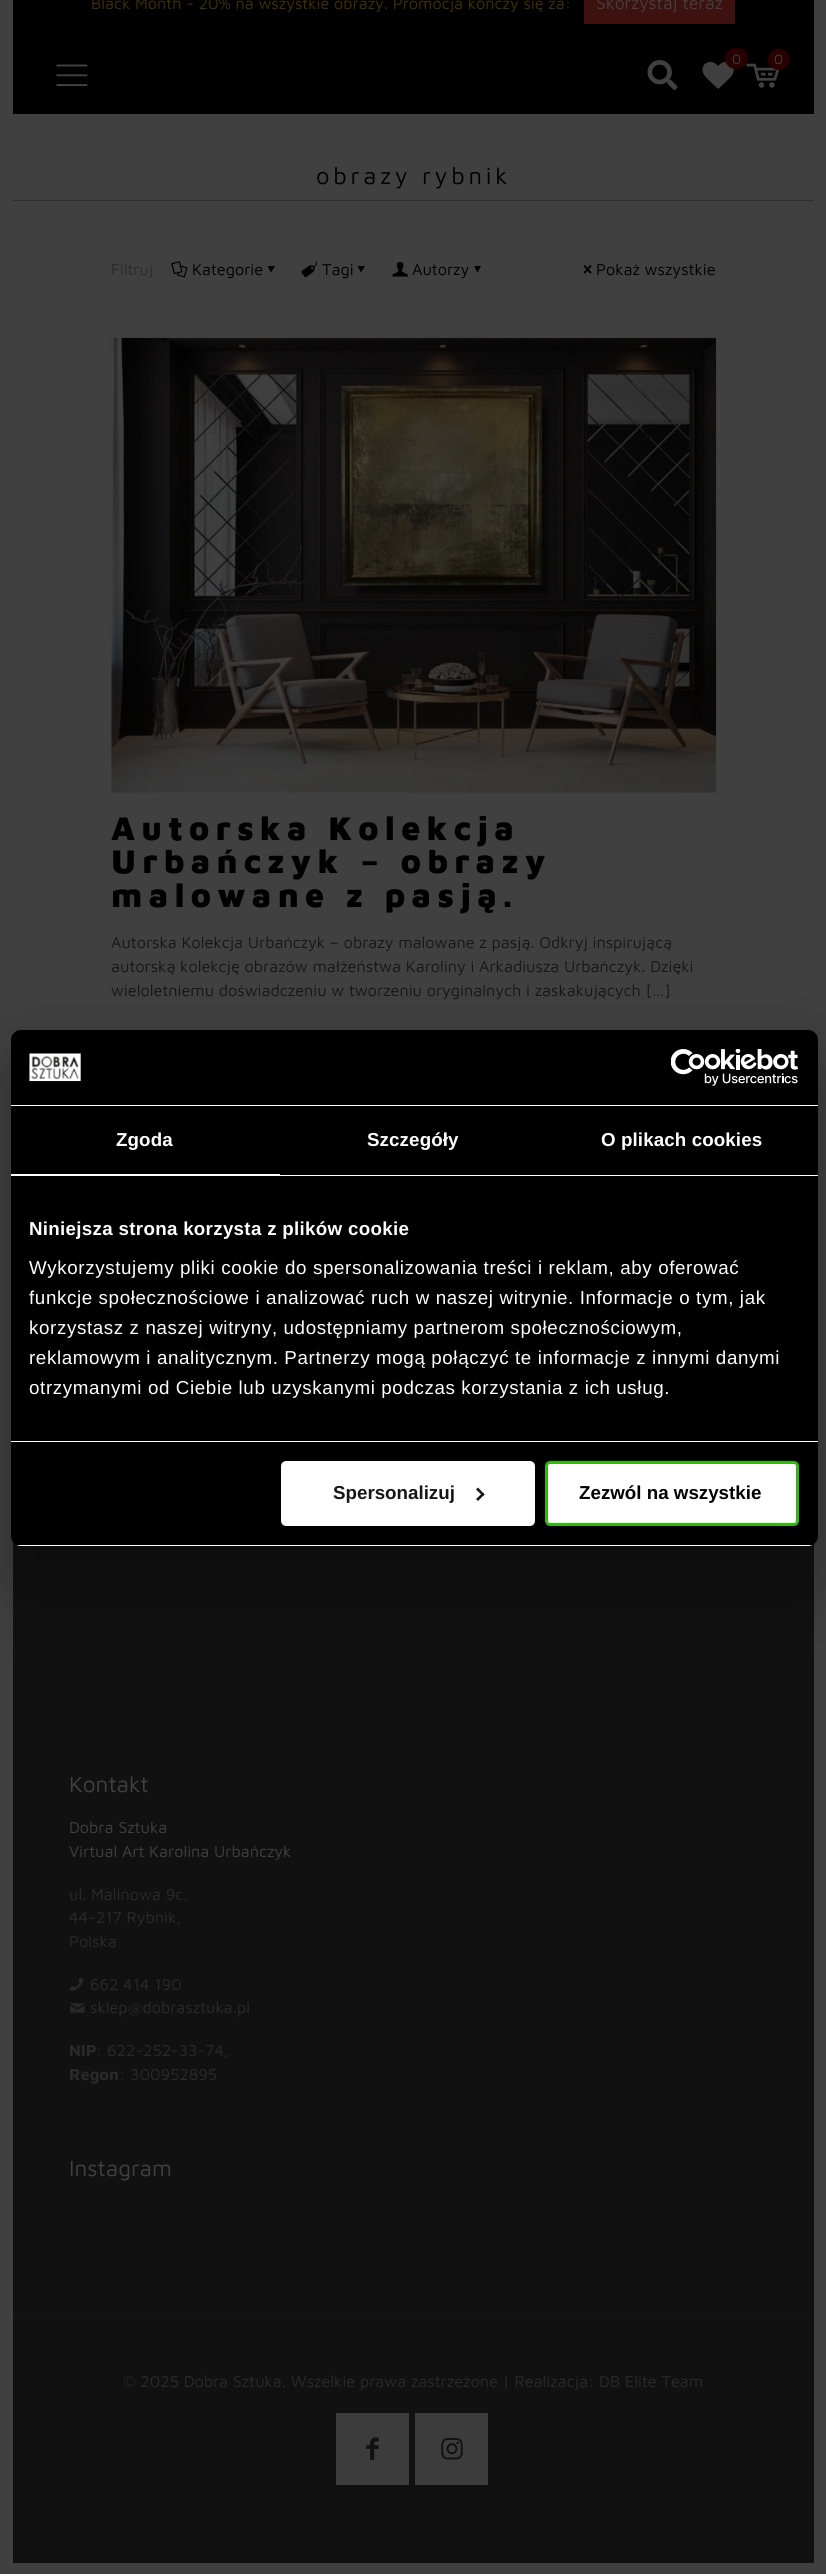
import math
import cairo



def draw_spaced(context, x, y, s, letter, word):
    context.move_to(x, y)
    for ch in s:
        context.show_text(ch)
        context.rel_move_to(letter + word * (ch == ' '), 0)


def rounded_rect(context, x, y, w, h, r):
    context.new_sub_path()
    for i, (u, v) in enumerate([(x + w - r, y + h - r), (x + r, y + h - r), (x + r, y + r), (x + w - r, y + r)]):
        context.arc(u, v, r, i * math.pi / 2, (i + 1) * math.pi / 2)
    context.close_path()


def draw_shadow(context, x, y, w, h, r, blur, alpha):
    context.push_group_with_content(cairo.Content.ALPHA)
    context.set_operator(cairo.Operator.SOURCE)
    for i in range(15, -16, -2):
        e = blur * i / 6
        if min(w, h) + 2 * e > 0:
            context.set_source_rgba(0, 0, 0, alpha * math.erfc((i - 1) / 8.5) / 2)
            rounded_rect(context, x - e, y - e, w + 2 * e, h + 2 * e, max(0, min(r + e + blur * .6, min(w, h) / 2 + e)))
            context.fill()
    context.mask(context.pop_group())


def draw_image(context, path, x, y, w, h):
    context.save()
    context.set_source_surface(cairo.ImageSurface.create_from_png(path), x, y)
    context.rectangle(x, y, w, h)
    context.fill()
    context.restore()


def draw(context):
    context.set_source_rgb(64 / 255, 64 / 255, 64 / 255)
    context.paint()
    context.set_source_rgb(0, 0, 0)
    context.rectangle(13, 0, 801, 114)
    context.fill()
    context.set_source_rgb(61 / 255, 17 / 255, 14 / 255)
    context.rectangle(584, 0, 151, 24)
    context.fill()
    draw_image(context, "images/1.png", 647, 60, 31, 30)
    draw_image(context, "images/2.png", 702, 61, 32, 28)
    context.set_source_rgb(41 / 255, 0, 0)
    rounded_rect(context, 725, 48, 23, 21, 10.5)
    context.fill()
    draw_image(context, "images/3.png", 746, 63, 34, 25)
    rounded_rect(context, 768, 49, 22, 21, 10.5)
    context.fill()
    draw_image(context, "images/4.png", 56, 64, 32, 23)
    context.set_source_rgb(46 / 255, 46 / 255, 46 / 255)
    context.rectangle(13, 200, 801, 1)
    context.fill()
    draw_image(context, "images/5.png", 171, 261, 17, 17)
    context.set_source_rgb(0, 0, 0)
    context.new_path()
    context.move_to(275, 266)
    context.line_to(271, 272.5)
    context.line_to(267.5, 266)
    context.close_path()
    context.fill()
    draw_image(context, "images/6.png", 301, 261, 16, 17)
    context.new_path()
    context.move_to(365, 266)
    context.line_to(361, 272.5)
    context.line_to(357.5, 266)
    context.close_path()
    context.fill()
    draw_image(context, "images/7.png", 392, 262, 16, 15)
    context.new_path()
    context.move_to(481, 266)
    context.line_to(477.5, 272.5)
    context.line_to(474, 266)
    context.close_path()
    context.fill()
    draw_image(context, "images/8.png", 583, 265, 9, 9)
    draw_image(context, "images/9.png", 111, 337, 606, 456)
    context.set_source_rgb(17 / 255, 17 / 255, 17 / 255)
    context.rectangle(13, 1542, 801, 777)
    context.fill()
    draw_image(context, "images/10.png", 70, 1977, 13, 14)
    draw_image(context, "images/11.png", 70, 2003, 15, 10)
    context.rectangle(13, 2320, 801, 243)
    context.fill()
    context.set_source_rgb(21 / 255, 21 / 255, 21 / 255)
    context.rectangle(13, 2319, 801, 1)
    context.fill()
    context.set_source_rgb(60 / 255, 60 / 255, 60 / 255)
    context.rectangle(336, 2413, 73, 72)
    context.fill()
    draw_image(context, "images/12.png", 366, 2437, 13, 23)
    context.rectangle(415, 2413, 73, 72)
    context.fill()
    draw_image(context, "images/13.png", 441, 2438, 22, 22)
    context.set_source_rgb(0, 0, 0)
    draw_shadow(context, 11, 1070, 807, 516, 10, 42.5, 0.3)
    context.set_source_rgb(0, 0, 0)
    rounded_rect(context, 11, 1030, 807, 516, 10)
    context.fill()
    context.set_source_rgb(1, 1, 1)
    context.rectangle(11, 1105, 807, 1)
    context.fill()
    draw_image(context, "images/14.png", 29, 1053, 52, 29)
    draw_image(context, "images/15.png", 671, 1049, 127, 37)
    context.rectangle(11, 1175, 807, 1)
    context.fill()
    context.rectangle(11, 1174, 269, 1)
    context.fill()
    context.rectangle(11, 1441, 807, 1)
    context.fill()
    context.save()
    rounded_rect(context, 11, 1030, 807, 516, 10)
    context.clip()
    context.rectangle(11, 1545, 807, 1)
    context.fill()
    context.restore()
    rounded_rect(context, 282.5, 1462.5, 251, 62, 3.5)
    context.fill_preserve()
    context.set_line_width(3)
    context.stroke()
    context.set_source_rgb(20 / 255, 20 / 255, 20 / 255)
    context.new_path()
    context.move_to(478, 1487.5)
    context.line_to(484.5, 1494.5)
    context.line_to(483, 1496)
    context.line_to(476, 1489.5)
    context.close_path()
    context.fill()
    context.new_path()
    context.move_to(483, 1492.5)
    context.line_to(484.5, 1494.5)
    context.line_to(478, 1501)
    context.line_to(476, 1499)
    context.close_path()
    context.fill()
    context.set_source_rgb(1, 1, 1)
    rounded_rect(context, 546.5, 1462.5, 251, 62, 3.5)
    context.fill_preserve()
    context.set_source_rgb(52 / 255, 184 / 255, 15 / 255)
    context.stroke()
    context.select_font_face("Maven Pro")
    context.set_font_size(16.25)
    context.set_source_rgb(64 / 255, 48 / 255, 2 / 255)
    context.move_to(91, 9)
    context.show_text("Black Month - 20% na wszystkie obrazy. Promocja kończy się za:")
    context.set_font_size(17.5)
    context.set_source_rgb(64 / 255, 64 / 255, 64 / 255)
    context.move_to(596, 9)
    context.show_text("Skorzystaj teraz")
    context.set_font_size(14)
    context.move_to(732, 64)
    context.show_text("0")
    context.move_to(774, 64)
    context.show_text("0")
    context.set_font_size(23.75)
    context.set_source_rgb(0, 0, 0)
    draw_spaced(context, 316, 184, "obrazy rybnik", 3.75, 0)
    context.set_font_size(16.25)
    context.set_source_rgb(42 / 255, 42 / 255, 42 / 255)
    context.move_to(111, 275)
    context.show_text("Filtruj")
    context.set_source_rgb(0, 0, 0)
    context.move_to(192, 275)
    context.show_text("Kategorie")
    context.move_to(322, 275)
    context.show_text("Tagi")
    context.move_to(412, 275)
    context.show_text("Autorzy")
    context.move_to(596, 275)
    context.show_text("Pokaż wszystkie")
    context.select_font_face("Maven Pro Black")
    context.set_font_size(33.75)
    draw_spaced(context, 111, 840, "Autorska Kolekcja", 6.25, 0)
    draw_spaced(context, 111, 873, "Urbańczyk – obrazy", 6.25, 0)
    draw_spaced(context, 111, 907, "malowane z pasją.", 6.25, 0)
    context.select_font_face("Maven Pro")
    context.set_font_size(16.25)
    context.set_source_rgb(22 / 255, 22 / 255, 22 / 255)
    context.move_to(111, 948)
    context.show_text("Autorska Kolekcja Urbańczyk – obrazy malowane z pasją. Odkryj inspirującą")
    context.move_to(111, 972)
    context.show_text("autorską kolekcję obrazów małżeństwa Karoliny i Arkadiusza Urbańczyk. Dzięki")
    context.move_to(111, 996)
    context.show_text("wieloletniemu doświadczeniu w tworzeniu oryginalnych i zaskakujących […]")
    context.set_font_size(22.5)
    context.set_source_rgb(64 / 255, 64 / 255, 64 / 255)
    context.move_to(69, 1792)
    context.show_text("Kontakt")
    context.set_font_size(16.25)
    context.move_to(69, 1833)
    context.show_text("Dobra Sztuka")
    context.move_to(69, 1857)
    context.show_text("Virtual Art Karolina Urbańczyk")
    context.set_source_rgb(42 / 255, 42 / 255, 42 / 255)
    context.move_to(69, 1900)
    context.show_text("ul. Malinowa 9c,")
    context.move_to(69, 1923)
    context.show_text("44-217 Rybnik,")
    context.move_to(69, 1947)
    context.show_text("Polska")
    context.move_to(90, 1990)
    context.show_text("662 414 190")
    context.move_to(90, 2013)
    context.show_text("sklep@dobrasztuka.pl")
    context.select_font_face("Maven Pro", cairo.FontSlant.NORMAL, cairo.FontWeight.BOLD)
    context.move_to(69, 2056)
    context.show_text("NIP")
    context.select_font_face("Maven Pro")
    context.move_to(96, 2056)
    context.show_text(": 622-252-33-74,")
    context.select_font_face("Maven Pro", cairo.FontSlant.NORMAL, cairo.FontWeight.BOLD)
    context.move_to(69, 2080)
    context.show_text("Regon")
    context.select_font_face("Maven Pro")
    context.move_to(119, 2080)
    context.show_text(": 300952895")
    context.set_font_size(22.5)
    context.set_source_rgb(64 / 255, 64 / 255, 64 / 255)
    context.move_to(69, 2176)
    context.show_text("Instagram")
    context.set_font_size(16.25)
    context.set_source_rgb(42 / 255, 42 / 255, 42 / 255)
    context.move_to(123, 2387)
    context.show_text("© 2025 Dobra Sztuka. Wszelkie prawa zastrzeżone | Realizacja: DB Elite Team")
    context.select_font_face("Liberation Sans", cairo.FontSlant.NORMAL, cairo.FontWeight.BOLD)
    context.set_font_size(18.75)
    context.set_source_rgb(1, 1, 1)
    draw_spaced(context, 116, 1146, "Zgoda", 0.1, 0)
    draw_spaced(context, 367, 1146, "Szczegóły", 0.1, 0)
    draw_spaced(context, 601, 1146, "O plikach cookies", 0.1, 0)
    draw_spaced(context, 29, 1235, "Niniejsza strona korzysta z plików cookie", 0.3, 0)
    context.select_font_face("Liberation Sans")
    draw_spaced(context, 29, 1274, "Wykorzystujemy pliki cookie do spersonalizowania treści i reklam, aby oferować", 0.62, 0)
    draw_spaced(context, 29, 1304, "funkcje społecznościowe i analizować ruch w naszej witrynie. Informacje o tym, jak", 0.62, 0)
    draw_spaced(context, 29, 1334, "korzystasz z naszej witryny, udostępniamy partnerom społecznościowym,", 0.62, 0)
    draw_spaced(context, 29, 1364, "reklamowym i analitycznym. Partnerzy mogą połączyć te informacje z innymi danymi", 0.62, 0)
    draw_spaced(context, 29, 1394, "otrzymanymi od Ciebie lub uzyskanymi podczas korzystania z ich usług.", 0.62, 0)
    context.select_font_face("Liberation Sans", cairo.FontSlant.NORMAL, cairo.FontWeight.BOLD)
    context.set_source_rgb(22 / 255, 22 / 255, 22 / 255)
    context.move_to(333, 1499)
    context.show_text("Spersonalizuj")
    context.set_source_rgb(0, 0, 0)
    context.move_to(579, 1499)
    context.show_text("Zezwól na wszystkie")


surface = cairo.ImageSurface(cairo.Format.RGB24, 826, 2574)
context = cairo.Context(surface)
options = cairo.FontOptions()
options.set_hint_metrics(cairo.HintMetrics.OFF)
options.set_hint_style(cairo.HintStyle.NONE)
context.set_font_options(options)
context.set_miter_limit(4)
draw(context)
surface.write_to_png("out.png")
